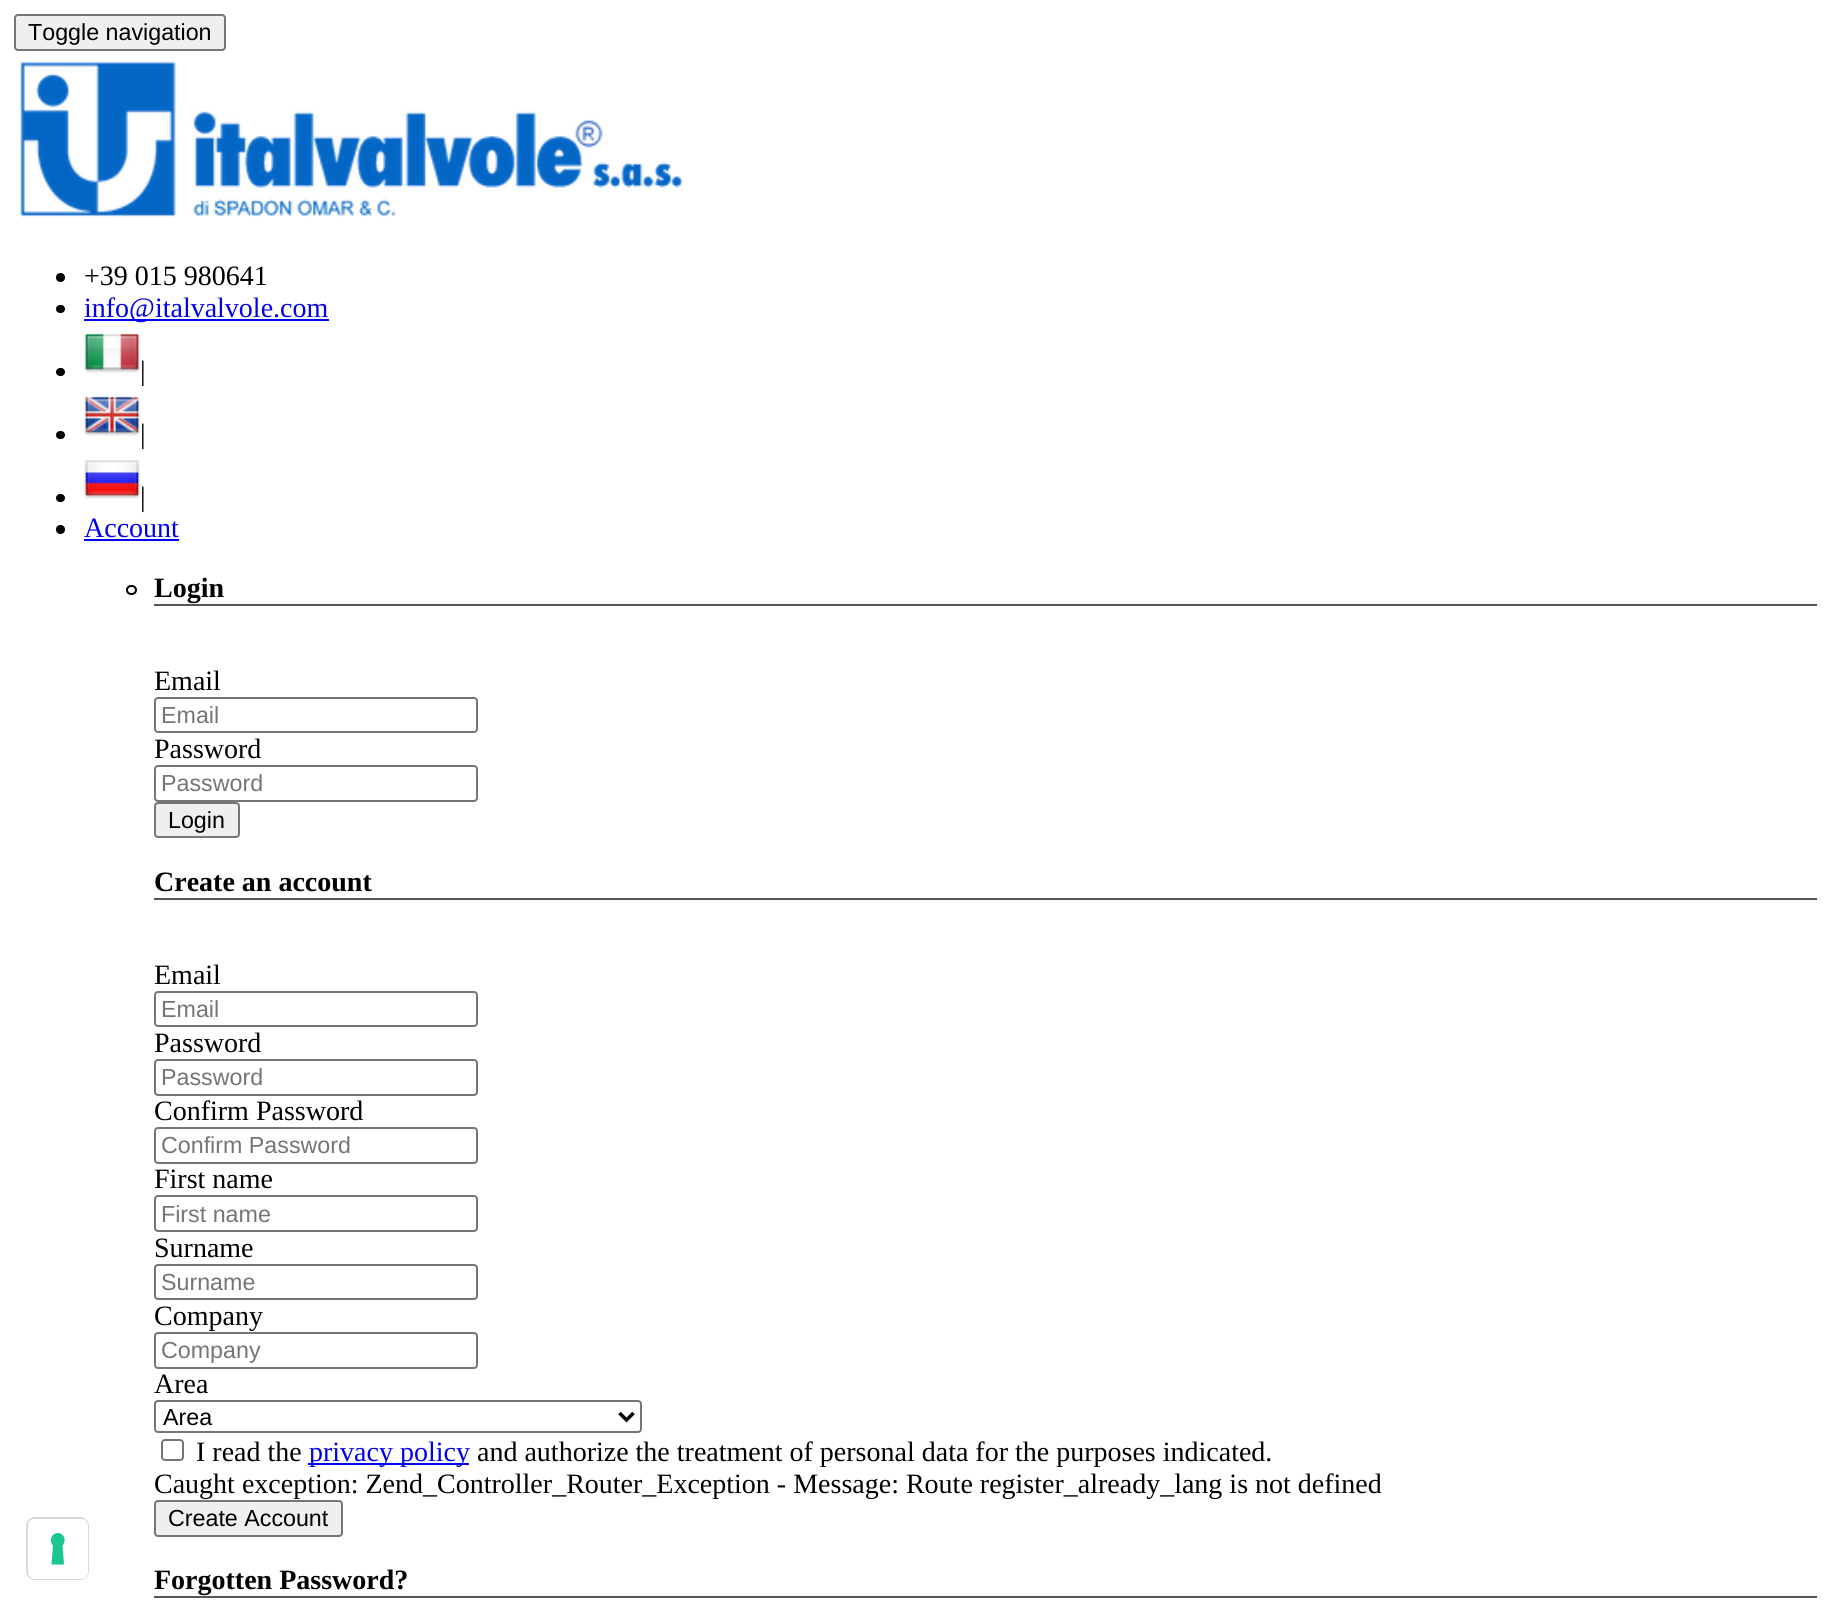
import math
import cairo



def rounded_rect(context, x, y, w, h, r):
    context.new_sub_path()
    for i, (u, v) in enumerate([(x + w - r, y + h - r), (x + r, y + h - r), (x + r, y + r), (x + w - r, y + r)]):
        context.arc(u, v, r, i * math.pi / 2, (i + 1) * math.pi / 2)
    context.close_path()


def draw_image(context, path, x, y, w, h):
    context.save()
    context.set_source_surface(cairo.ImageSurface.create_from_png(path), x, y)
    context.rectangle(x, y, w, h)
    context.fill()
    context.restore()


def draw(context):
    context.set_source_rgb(1, 1, 1)
    context.paint()
    context.set_source_rgb(239 / 255, 239 / 255, 239 / 255)
    rounded_rect(context, 15, 15, 210, 35, 3)
    context.fill_preserve()
    context.set_source_rgb(118 / 255, 118 / 255, 118 / 255)
    context.stroke()
    draw_image(context, "images/1.png", 20, 61, 663, 157)
    context.set_source_rgb(0, 0, 0)
    context.arc(60.5, 277.5, 4.5, 0, 2 * math.pi)
    context.fill()
    rounded_rect(context, 56, 305, 9, 8, 4)
    context.fill()
    context.set_source_rgb(0, 0, 238 / 255)
    context.rectangle(84, 319, 245, 2)
    context.fill()
    context.set_source_rgb(0, 0, 0)
    rounded_rect(context, 56, 368, 9, 8, 4)
    context.fill()
    draw_image(context, "images/2.png", 84, 333, 56, 40)
    rounded_rect(context, 56, 431, 9, 8, 4)
    context.fill()
    draw_image(context, "images/3.png", 84, 396, 56, 40)
    rounded_rect(context, 56, 494, 9, 8, 4)
    context.fill()
    draw_image(context, "images/4.png", 84, 460, 56, 39)
    context.arc(60.5, 529.5, 4.5, 0, 2 * math.pi)
    context.fill()
    context.set_source_rgb(0, 0, 238 / 255)
    context.rectangle(84, 539, 95, 2)
    context.fill()
    rounded_rect(context, 127, 586, 9, 8, 4)
    context.set_source_rgb(0, 0, 0)
    context.stroke()
    context.set_source_rgb(85 / 255, 85 / 255, 85 / 255)
    context.rectangle(154, 604, 1663, 2)
    context.fill()
    rounded_rect(context, 155, 698, 322, 34, 3)
    context.set_source_rgb(118 / 255, 118 / 255, 118 / 255)
    context.stroke()
    rounded_rect(context, 155, 766, 322, 35, 3)
    context.stroke()
    context.set_source_rgb(239 / 255, 239 / 255, 239 / 255)
    rounded_rect(context, 155, 803, 84, 34, 3)
    context.fill_preserve()
    context.set_source_rgb(118 / 255, 118 / 255, 118 / 255)
    context.stroke()
    context.set_source_rgb(85 / 255, 85 / 255, 85 / 255)
    context.rectangle(154, 898, 1663, 2)
    context.fill()
    rounded_rect(context, 155, 992, 322, 34, 3)
    context.set_source_rgb(118 / 255, 118 / 255, 118 / 255)
    context.stroke()
    rounded_rect(context, 155, 1060, 322, 35, 3)
    context.stroke()
    rounded_rect(context, 155, 1128, 322, 35, 3)
    context.stroke()
    rounded_rect(context, 155, 1196, 322, 35, 3)
    context.stroke()
    rounded_rect(context, 155, 1265, 322, 34, 3)
    context.stroke()
    rounded_rect(context, 155, 1333, 322, 35, 3)
    context.stroke()
    rounded_rect(context, 155, 1401, 486, 31, 3)
    context.stroke()
    context.new_path()
    context.move_to(619.5, 1413)
    context.line_to(626.5, 1420)
    context.line_to(633.5, 1413)
    context.set_source_rgb(0, 0, 0)
    context.set_line_width(3.5)
    context.stroke()
    rounded_rect(context, 162, 1440, 21, 20, 3)
    context.set_source_rgb(118 / 255, 118 / 255, 118 / 255)
    context.set_line_width(2)
    context.stroke()
    context.set_source_rgb(0, 0, 238 / 255)
    context.rectangle(308, 1463, 161, 2)
    context.fill()
    context.set_source_rgb(239 / 255, 239 / 255, 239 / 255)
    rounded_rect(context, 155, 1501, 187, 35, 3)
    context.fill_preserve()
    context.set_source_rgb(118 / 255, 118 / 255, 118 / 255)
    context.stroke()
    context.set_source_rgb(85 / 255, 85 / 255, 85 / 255)
    context.rectangle(154, 1596, 1663, 2)
    context.fill()
    rounded_rect(context, 27, 1518, 61, 61, 8)
    context.set_source_rgb(217 / 255, 217 / 255, 217 / 255)
    context.stroke()
    context.set_source_rgb(1, 1, 1)
    rounded_rect(context, 28, 1519, 60, 60, 7)
    context.fill()
    context.set_source_rgb(28 / 255, 198 / 255, 145 / 255)
    context.set_fill_rule(cairo.FillRule.EVEN_ODD)
    context.new_path()
    context.move_to(58, 1533)
    context.curve_to(64, 1533, 67, 1541, 62.5, 1545.5)
    context.line_to(64, 1564.5)
    context.line_to(51.5, 1564.5)
    context.line_to(53, 1545.5)
    context.curve_to(48.5, 1541, 51.5, 1533, 58, 1533)
    context.close_path()
    context.fill()
    context.select_font_face("Liberation Sans")
    context.set_font_size(23.25)
    context.set_source_rgb(0, 0, 0)
    context.move_to(28, 40)
    context.show_text("Toggle navigation")
    context.select_font_face("Liberation Serif")
    context.set_font_size(28)
    context.move_to(84, 285)
    context.show_text("+39 015 980641")
    context.set_source_rgb(0, 0, 238 / 255)
    context.move_to(84, 317)
    context.show_text("info@italvalvole.com")
    context.set_source_rgb(0, 0, 0)
    context.move_to(140, 380)
    context.show_text("|")
    context.move_to(140, 443)
    context.show_text("|")
    context.move_to(140, 506)
    context.show_text("|")
    context.set_source_rgb(0, 0, 238 / 255)
    context.move_to(84, 537)
    context.show_text("Account")
    context.select_font_face("Liberation Serif", cairo.FontSlant.NORMAL, cairo.FontWeight.BOLD)
    context.set_source_rgb(0, 0, 0)
    context.move_to(154, 597)
    context.show_text("Login")
    context.select_font_face("Liberation Serif")
    context.move_to(154, 690)
    context.show_text("Email")
    context.select_font_face("Liberation Sans")
    context.set_font_size(23.25)
    context.set_source_rgb(117 / 255, 117 / 255, 117 / 255)
    context.move_to(161, 723)
    context.show_text("Email")
    context.select_font_face("Liberation Serif")
    context.set_font_size(28)
    context.set_source_rgb(0, 0, 0)
    context.move_to(154, 758)
    context.show_text("Password")
    context.select_font_face("Liberation Sans")
    context.set_font_size(23.25)
    context.set_source_rgb(117 / 255, 117 / 255, 117 / 255)
    context.move_to(161, 791)
    context.show_text("Password")
    context.set_source_rgb(0, 0, 0)
    context.move_to(168, 828)
    context.show_text("Login")
    context.select_font_face("Liberation Serif", cairo.FontSlant.NORMAL, cairo.FontWeight.BOLD)
    context.set_font_size(28)
    context.move_to(154, 891)
    context.show_text("Create an account")
    context.select_font_face("Liberation Serif")
    context.move_to(154, 984)
    context.show_text("Email")
    context.select_font_face("Liberation Sans")
    context.set_font_size(23.25)
    context.set_source_rgb(117 / 255, 117 / 255, 117 / 255)
    context.move_to(161, 1017)
    context.show_text("Email")
    context.select_font_face("Liberation Serif")
    context.set_font_size(28)
    context.set_source_rgb(0, 0, 0)
    context.move_to(154, 1052)
    context.show_text("Password")
    context.select_font_face("Liberation Sans")
    context.set_font_size(23.25)
    context.set_source_rgb(117 / 255, 117 / 255, 117 / 255)
    context.move_to(161, 1085)
    context.show_text("Password")
    context.select_font_face("Liberation Serif")
    context.set_font_size(28)
    context.set_source_rgb(0, 0, 0)
    context.move_to(154, 1120)
    context.show_text("Confirm Password")
    context.select_font_face("Liberation Sans")
    context.set_font_size(23.25)
    context.set_source_rgb(117 / 255, 117 / 255, 117 / 255)
    context.move_to(161, 1153)
    context.show_text("Confirm Password")
    context.select_font_face("Liberation Serif")
    context.set_font_size(28)
    context.set_source_rgb(0, 0, 0)
    context.move_to(154, 1188)
    context.show_text("First name")
    context.select_font_face("Liberation Sans")
    context.set_font_size(23.25)
    context.set_source_rgb(117 / 255, 117 / 255, 117 / 255)
    context.move_to(161, 1222)
    context.show_text("First name")
    context.select_font_face("Liberation Serif")
    context.set_font_size(28)
    context.set_source_rgb(0, 0, 0)
    context.move_to(154, 1257)
    context.show_text("Surname")
    context.select_font_face("Liberation Sans")
    context.set_font_size(23.25)
    context.set_source_rgb(117 / 255, 117 / 255, 117 / 255)
    context.move_to(161, 1290)
    context.show_text("Surname")
    context.select_font_face("Liberation Serif")
    context.set_font_size(28)
    context.set_source_rgb(0, 0, 0)
    context.move_to(154, 1325)
    context.show_text("Company")
    context.select_font_face("Liberation Sans")
    context.set_font_size(23.25)
    context.set_source_rgb(117 / 255, 117 / 255, 117 / 255)
    context.move_to(161, 1358)
    context.show_text("Company")
    context.select_font_face("Liberation Serif")
    context.set_font_size(28)
    context.set_source_rgb(0, 0, 0)
    context.move_to(154, 1393)
    context.show_text("Area")
    context.select_font_face("Liberation Sans")
    context.set_font_size(23.25)
    context.move_to(163, 1425)
    context.show_text("Area")
    context.select_font_face("Liberation Serif")
    context.set_font_size(28)
    context.move_to(196, 1461)
    context.show_text("I read the")
    context.set_source_rgb(0, 0, 238 / 255)
    context.move_to(309, 1461)
    context.show_text("privacy policy")
    context.set_source_rgb(0, 0, 0)
    context.move_to(477, 1461)
    context.show_text("and authorize the treatment of personal data for the purposes indicated.")
    context.move_to(154, 1493)
    context.show_text("Caught exception: Zend_Controller_Router_Exception - Message: Route register_already_lang is not defined")
    context.select_font_face("Liberation Sans")
    context.set_font_size(23.25)
    context.move_to(168, 1526)
    context.show_text("Create Account")
    context.select_font_face("Liberation Serif", cairo.FontSlant.NORMAL, cairo.FontWeight.BOLD)
    context.set_font_size(28)
    context.move_to(154, 1589)
    context.show_text("Forgotten Password?")


surface = cairo.ImageSurface(cairo.Format.RGB24, 1830, 1606)
context = cairo.Context(surface)
options = cairo.FontOptions()
options.set_hint_metrics(cairo.HintMetrics.OFF)
options.set_hint_style(cairo.HintStyle.NONE)
context.set_font_options(options)
context.set_miter_limit(4)
draw(context)
surface.write_to_png("out.png")
